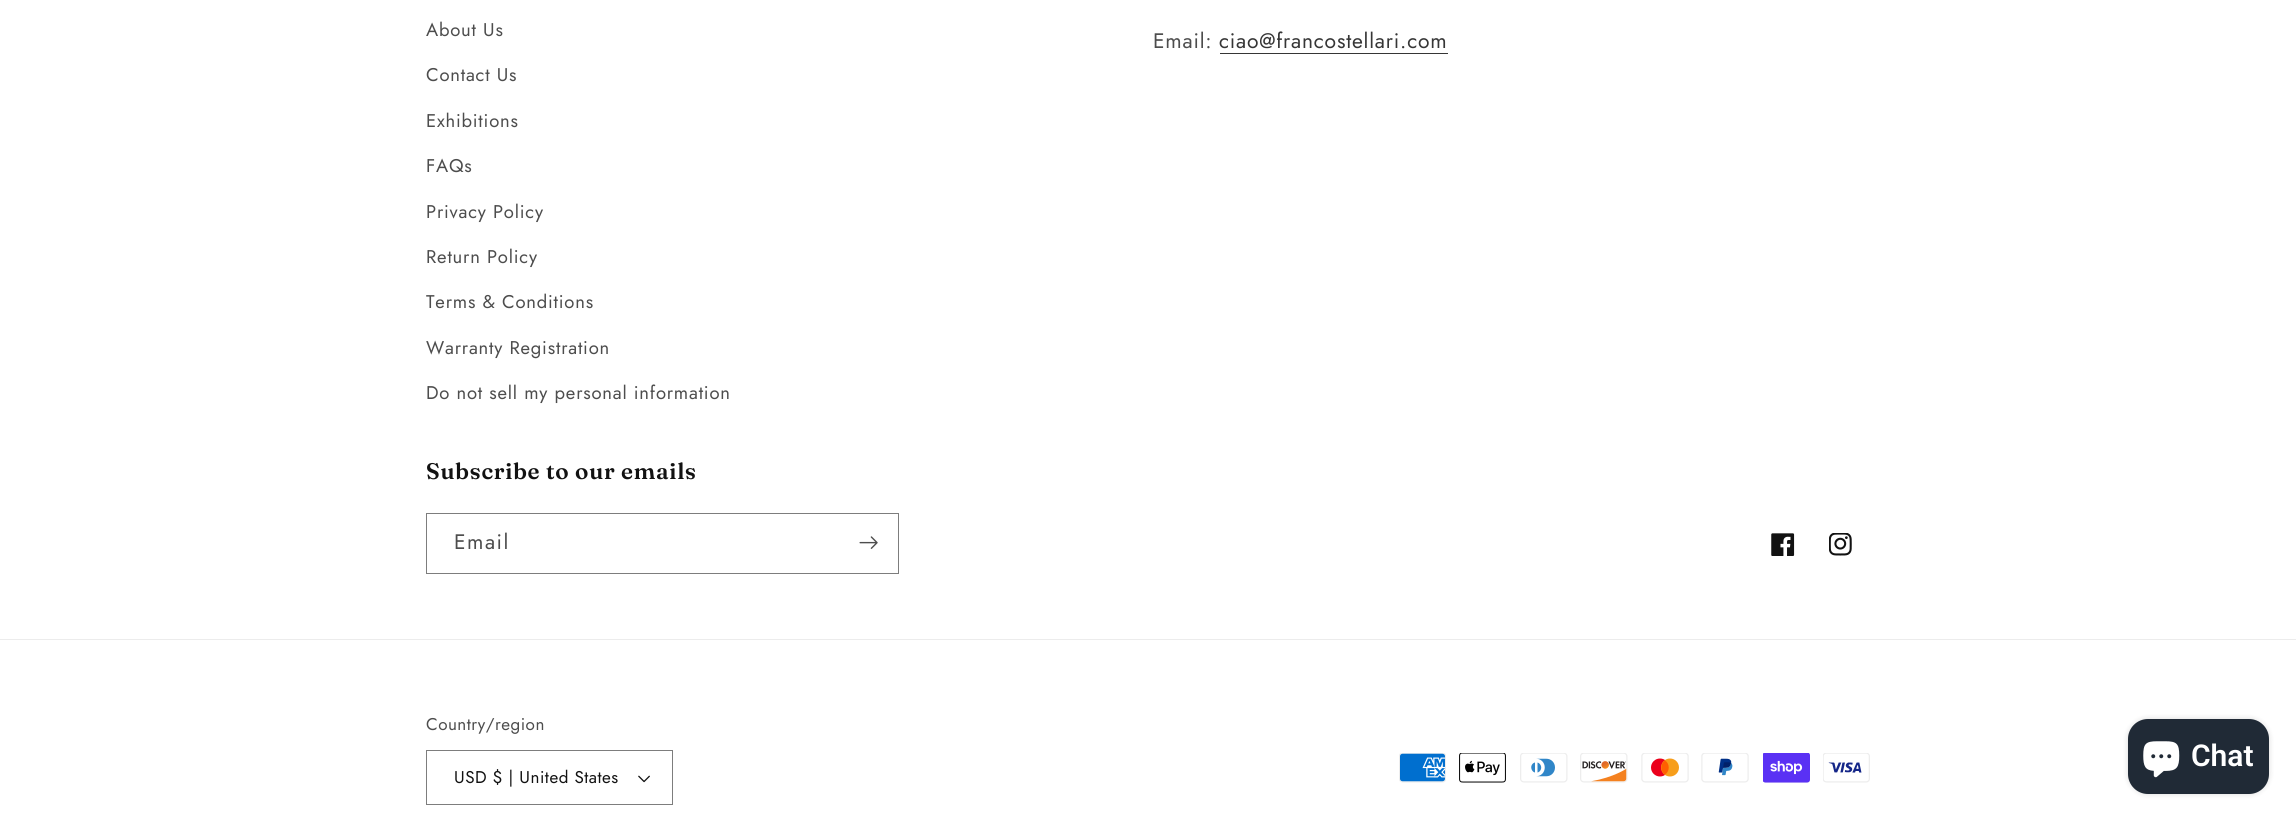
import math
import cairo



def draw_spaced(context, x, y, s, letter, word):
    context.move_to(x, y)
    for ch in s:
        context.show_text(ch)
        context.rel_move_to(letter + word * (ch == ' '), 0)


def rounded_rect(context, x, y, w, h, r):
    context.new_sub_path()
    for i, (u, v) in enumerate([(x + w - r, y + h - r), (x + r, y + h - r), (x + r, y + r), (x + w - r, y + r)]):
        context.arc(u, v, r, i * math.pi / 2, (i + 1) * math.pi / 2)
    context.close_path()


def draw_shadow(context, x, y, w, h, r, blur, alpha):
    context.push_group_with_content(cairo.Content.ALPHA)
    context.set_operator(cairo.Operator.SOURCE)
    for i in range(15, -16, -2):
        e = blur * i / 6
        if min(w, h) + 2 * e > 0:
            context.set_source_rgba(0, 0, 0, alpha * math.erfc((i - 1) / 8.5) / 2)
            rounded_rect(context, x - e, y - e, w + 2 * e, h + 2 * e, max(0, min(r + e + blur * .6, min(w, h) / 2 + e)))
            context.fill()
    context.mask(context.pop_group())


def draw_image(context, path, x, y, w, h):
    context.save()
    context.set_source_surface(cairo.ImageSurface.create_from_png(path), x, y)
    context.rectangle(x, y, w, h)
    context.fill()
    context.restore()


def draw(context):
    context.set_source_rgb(1, 1, 1)
    context.paint()
    context.set_source_rgb(54 / 255, 54 / 255, 54 / 255)
    context.rectangle(1220, 53, 228, 1)
    context.fill()
    context.rectangle(426.5, 513.5, 472, 60)
    context.set_source_rgb(125 / 255, 125 / 255, 125 / 255)
    context.set_line_width(1)
    context.stroke()
    draw_image(context, "images/1.png", 859, 536, 19, 13)
    draw_image(context, "images/2.png", 1771, 533, 24, 23)
    draw_image(context, "images/3.png", 1829, 533, 23, 23)
    context.set_source_rgb(236 / 255, 236 / 255, 236 / 255)
    context.rectangle(0, 639, 2296, 1)
    context.fill()
    draw_image(context, "images/4.png", 638, 775, 12, 8)
    context.rectangle(426.5, 750.5, 246, 54)
    context.set_source_rgb(125 / 255, 125 / 255, 125 / 255)
    context.stroke()
    draw_image(context, "images/5.png", 1399, 753, 47, 30)
    draw_image(context, "images/6.png", 1459, 753, 47, 30)
    draw_image(context, "images/7.png", 1520, 753, 48, 30)
    draw_image(context, "images/8.png", 1580, 753, 48, 30)
    draw_image(context, "images/9.png", 1641, 753, 48, 30)
    draw_image(context, "images/10.png", 1701, 753, 48, 30)
    draw_image(context, "images/11.png", 1763, 753, 47, 30)
    draw_image(context, "images/12.png", 1823, 753, 47, 30)
    context.set_source_rgb(0, 0, 0)
    draw_shadow(context, 2128, 719, 141, 75, 20, 3, 0.15)
    context.set_source_rgb(32 / 255, 42 / 255, 54 / 255)
    rounded_rect(context, 2128, 719, 141, 75, 20)
    context.fill()
    draw_image(context, "images/13.png", 2143, 741, 37, 37)
    context.select_font_face("Jost")
    context.set_font_size(18.4)
    context.set_source_rgb(77 / 255, 77 / 255, 77 / 255)
    draw_spaced(context, 426, 36, "About Us", 0.8, 0)
    draw_spaced(context, 426, 81, "Contact Us", 0.8, 0)
    draw_spaced(context, 426, 127, "Exhibitions", 0.8, 0)
    draw_spaced(context, 426, 172, "FAQs", 0.8, 0)
    draw_spaced(context, 426, 218, "Privacy Policy", 0.8, 0)
    draw_spaced(context, 426, 263, "Return Policy", 0.8, 0)
    draw_spaced(context, 426, 308, "Terms & Conditions", 0.8, 0)
    draw_spaced(context, 426, 354, "Warranty Registration", 0.8, 0)
    draw_spaced(context, 426, 399, "Do not sell my personal information", 0.8, 0)
    context.set_font_size(21)
    draw_spaced(context, 1153, 48, "Email:", 0.8, 0)
    context.set_source_rgb(54 / 255, 54 / 255, 54 / 255)
    draw_spaced(context, 1219, 48, "ciao@francostellari.com", 0.8, 0)
    context.select_font_face("Fraunces SemiBold")
    context.set_font_size(22.5)
    context.set_source_rgb(18 / 255, 18 / 255, 18 / 255)
    draw_spaced(context, 426, 479, "Subscribe to our emails", 0.75, 0)
    context.select_font_face("Jost")
    context.set_font_size(21)
    context.set_source_rgb(77 / 255, 77 / 255, 77 / 255)
    draw_spaced(context, 454, 549, "Email", 1.5, 0)
    context.set_font_size(17)
    draw_spaced(context, 426, 730, "Country/region", 0.5, 0)
    context.set_source_rgb(18 / 255, 18 / 255, 18 / 255)
    draw_spaced(context, 454, 783, "USD $ | United States", 0.5, 0)
    context.select_font_face("Roboto SemiBold")
    context.set_font_size(30)
    context.set_source_rgb(1, 1, 1)
    context.move_to(2191, 766)
    context.show_text("Chat")


surface = cairo.ImageSurface(cairo.Format.RGB24, 2296, 819)
context = cairo.Context(surface)
options = cairo.FontOptions()
options.set_hint_metrics(cairo.HintMetrics.OFF)
options.set_hint_style(cairo.HintStyle.NONE)
context.set_font_options(options)
context.set_miter_limit(4)
draw(context)
surface.write_to_png("out.png")
